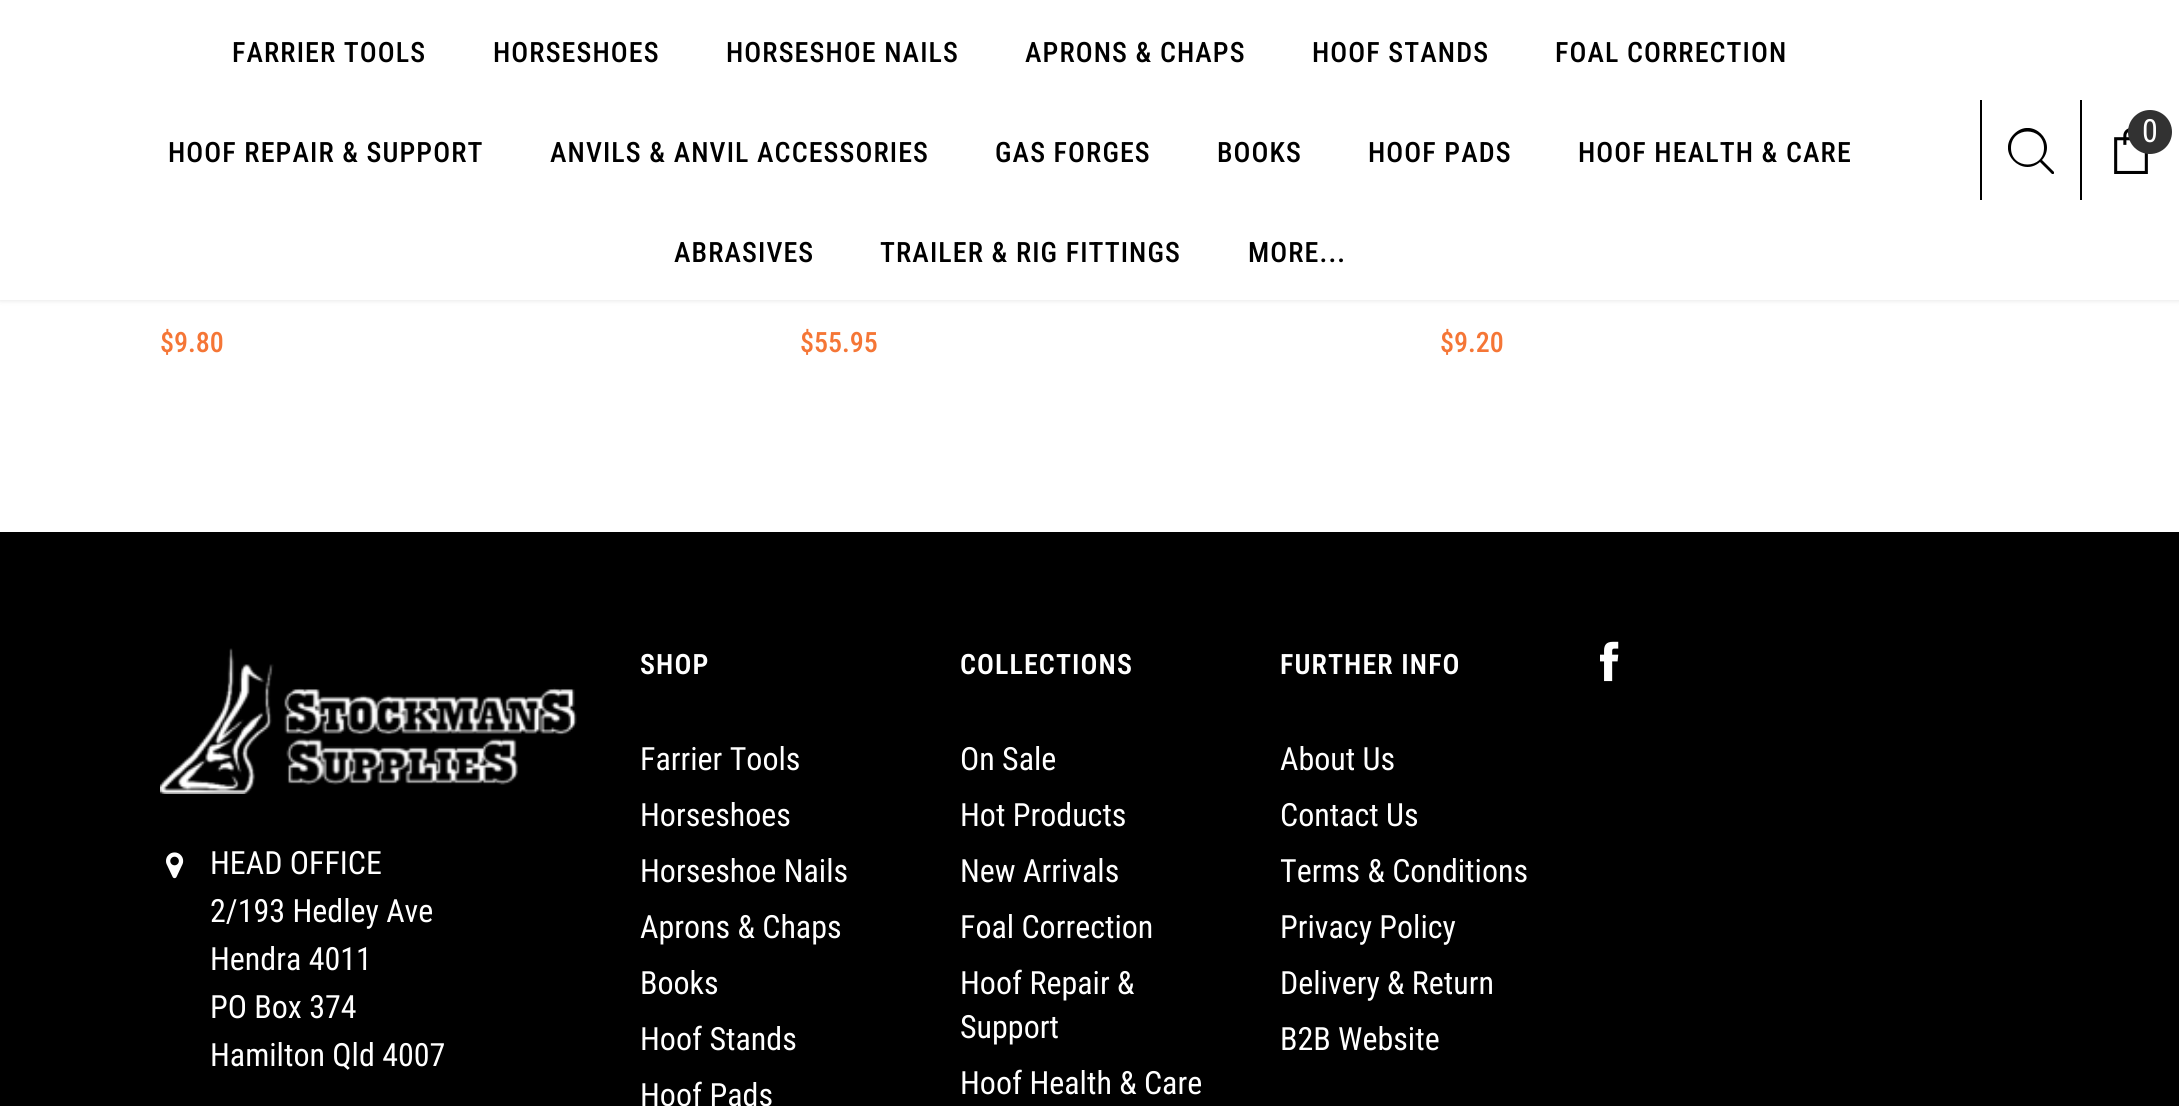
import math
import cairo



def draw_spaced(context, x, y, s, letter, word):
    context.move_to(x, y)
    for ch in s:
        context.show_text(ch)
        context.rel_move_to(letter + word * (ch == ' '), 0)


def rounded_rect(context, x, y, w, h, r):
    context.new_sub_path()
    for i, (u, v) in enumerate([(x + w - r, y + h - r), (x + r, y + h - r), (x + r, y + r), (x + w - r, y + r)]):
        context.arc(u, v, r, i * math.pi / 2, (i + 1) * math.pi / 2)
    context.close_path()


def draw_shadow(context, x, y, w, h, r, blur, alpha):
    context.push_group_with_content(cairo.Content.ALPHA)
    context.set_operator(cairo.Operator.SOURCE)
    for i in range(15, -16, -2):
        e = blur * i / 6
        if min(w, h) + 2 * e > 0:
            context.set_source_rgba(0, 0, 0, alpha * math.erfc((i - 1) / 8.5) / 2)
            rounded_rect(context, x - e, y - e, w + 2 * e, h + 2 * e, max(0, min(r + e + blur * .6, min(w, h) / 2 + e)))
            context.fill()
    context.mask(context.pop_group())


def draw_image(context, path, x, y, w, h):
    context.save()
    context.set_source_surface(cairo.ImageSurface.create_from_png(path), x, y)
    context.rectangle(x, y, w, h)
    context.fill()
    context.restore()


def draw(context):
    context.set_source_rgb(1, 1, 1)
    context.paint()
    context.set_source_rgb(0, 0, 0)
    draw_shadow(context, 0, 0, 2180, 300, 0, 3, 0.12)
    context.set_source_rgb(1, 1, 1)
    context.rectangle(0, 0, 2179, 300)
    context.fill()
    context.set_source_rgb(0, 0, 0)
    context.rectangle(1980, 100, 2, 100)
    context.fill()
    context.save()
    context.rectangle(2008, 128, 46, 46)
    context.clip()
    context.new_path()
    context.move_to(2054, 172)
    context.line_to(2042, 160)
    context.curve_to(2058, 142, 2032, 116, 2014, 134)
    context.curve_to(1996, 152, 2022, 178, 2040, 162)
    context.line_to(2052, 174)
    context.curve_to(2053, 175, 2055, 173, 2054, 172)
    context.close_path()
    context.move_to(2011, 148)
    context.curve_to(2011, 126, 2044, 126, 2044, 148)
    context.curve_to(2044, 170, 2011, 170, 2011, 148)
    context.close_path()
    context.fill()
    context.restore()
    context.rectangle(2080, 100, 2, 100)
    context.fill()
    draw_image(context, "images/1.png", 2114, 128, 34, 46)
    context.set_source_rgb(50 / 255, 50 / 255, 50 / 255)
    context.arc(2150, 132, 22, 0, 2 * math.pi)
    context.fill()
    context.set_source_rgb(0, 0, 0)
    context.rectangle(0, 532, 2179, 574)
    context.fill()
    draw_image(context, "images/2.png", 160, 648, 417, 146)
    draw_image(context, "images/3.png", 166, 852, 18, 27)
    draw_image(context, "images/4.png", 1600, 641, 19, 41)
    context.select_font_face("Roboto Condensed Medium")
    context.set_font_size(28)
    draw_spaced(context, 232, 62, "FARRIER TOOLS", 1.1, 0)
    draw_spaced(context, 493, 62, "HORSESHOES", 1.1, 0)
    draw_spaced(context, 726, 62, "HORSESHOE NAILS", 1.1, 0)
    draw_spaced(context, 1025, 62, "APRONS & CHAPS", 1.1, 0)
    draw_spaced(context, 1312, 62, "HOOF STANDS", 1.1, 0)
    draw_spaced(context, 1555, 62, "FOAL CORRECTION", 1.1, 0)
    draw_spaced(context, 168, 162, "HOOF REPAIR & SUPPORT", 1.1, 0)
    draw_spaced(context, 550, 162, "ANVILS & ANVIL ACCESSORIES", 1.1, 0)
    draw_spaced(context, 995, 162, "GAS FORGES", 1.1, 0)
    draw_spaced(context, 1217, 162, "BOOKS", 1.1, 0)
    draw_spaced(context, 1368, 162, "HOOF PADS", 1.1, 0)
    draw_spaced(context, 1578, 162, "HOOF HEALTH & CARE", 1.1, 0)
    draw_spaced(context, 674, 262, "ABRASIVES", 1.1, 0)
    draw_spaced(context, 880, 262, "TRAILER & RIG FITTINGS", 1.1, 0)
    draw_spaced(context, 1248, 262, "MORE...", 1.1, 0)
    context.select_font_face("Roboto Condensed")
    context.set_font_size(32)
    context.set_source_rgb(1, 1, 1)
    context.move_to(2142, 142)
    context.show_text("0")
    context.select_font_face("Roboto Condensed Medium")
    context.set_font_size(28)
    context.set_source_rgb(245 / 255, 118 / 255, 54 / 255)
    context.move_to(160, 352)
    context.show_text("$9.80")
    context.move_to(800, 352)
    context.show_text("$55.95")
    context.move_to(1440, 352)
    context.show_text("$9.20")
    context.select_font_face("Roboto Condensed")
    context.set_font_size(32)
    context.set_source_rgb(1, 1, 1)
    context.move_to(210, 874)
    context.show_text("HEAD OFFICE")
    context.move_to(210, 922)
    context.show_text("2/193 Hedley Ave")
    context.move_to(210, 970)
    context.show_text("Hendra 4011")
    context.move_to(210, 1018)
    context.show_text("PO Box 374")
    context.move_to(210, 1066)
    context.show_text("Hamilton Qld 4007")
    context.select_font_face("Roboto Condensed SemiBold")
    context.set_font_size(28)
    draw_spaced(context, 640, 674, "SHOP", 1.1, 0)
    context.select_font_face("Roboto Condensed")
    context.set_font_size(32)
    context.move_to(640, 770)
    context.show_text("Farrier Tools")
    context.move_to(640, 826)
    context.show_text("Horseshoes")
    context.move_to(640, 882)
    context.show_text("Horseshoe Nails")
    context.move_to(640, 938)
    context.show_text("Aprons & Chaps")
    context.move_to(640, 994)
    context.show_text("Books")
    context.move_to(640, 1050)
    context.show_text("Hoof Stands")
    context.move_to(640, 1106)
    context.show_text("Hoof Pads")
    context.select_font_face("Roboto Condensed SemiBold")
    context.set_font_size(28)
    draw_spaced(context, 960, 674, "COLLECTIONS", 1.1, 0)
    context.select_font_face("Roboto Condensed")
    context.set_font_size(32)
    context.move_to(960, 770)
    context.show_text("On Sale")
    context.move_to(960, 826)
    context.show_text("Hot Products")
    context.move_to(960, 882)
    context.show_text("New Arrivals")
    context.move_to(960, 938)
    context.show_text("Foal Correction")
    context.move_to(960, 994)
    context.show_text("Hoof Repair &")
    context.move_to(960, 1038)
    context.show_text("Support")
    context.move_to(960, 1094)
    context.show_text("Hoof Health & Care")
    context.select_font_face("Roboto Condensed SemiBold")
    context.set_font_size(28)
    draw_spaced(context, 1280, 674, "FURTHER INFO", 1.1, 0)
    context.select_font_face("Roboto Condensed")
    context.set_font_size(32)
    context.move_to(1280, 770)
    context.show_text("About Us")
    context.move_to(1280, 826)
    context.show_text("Contact Us")
    context.move_to(1280, 882)
    context.show_text("Terms & Conditions")
    context.move_to(1280, 938)
    context.show_text("Privacy Policy")
    context.move_to(1280, 994)
    context.show_text("Delivery & Return")
    context.move_to(1280, 1050)
    context.show_text("B2B Website")


surface = cairo.ImageSurface(cairo.Format.RGB24, 2179, 1106)
context = cairo.Context(surface)
options = cairo.FontOptions()
options.set_hint_metrics(cairo.HintMetrics.OFF)
options.set_hint_style(cairo.HintStyle.NONE)
context.set_font_options(options)
context.set_miter_limit(4)
draw(context)
surface.write_to_png("out.png")
